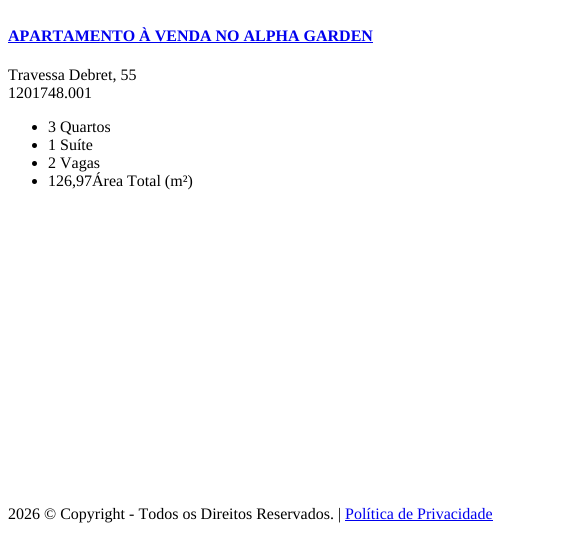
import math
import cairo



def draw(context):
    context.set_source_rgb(1, 1, 1)
    context.paint()
    context.set_source_rgb(0, 0, 238 / 255)
    context.rectangle(8, 42, 365, 1)
    context.fill()
    context.set_source_rgb(0, 0, 0)
    context.arc(34.5, 127.5, 2.5, 0, 2 * math.pi)
    context.fill()
    context.arc(34.5, 145.5, 2.5, 0, 2 * math.pi)
    context.fill()
    context.arc(34.5, 163.5, 2.5, 0, 2 * math.pi)
    context.fill()
    context.arc(34.5, 181.5, 2.5, 0, 2 * math.pi)
    context.fill()
    context.set_source_rgb(0, 0, 238 / 255)
    context.rectangle(345, 520, 148, 1)
    context.fill()
    context.select_font_face("Liberation Serif", cairo.FontSlant.NORMAL, cairo.FontWeight.BOLD)
    context.set_font_size(16)
    context.move_to(8, 41)
    context.show_text("APARTAMENTO À VENDA NO ALPHA GARDEN")
    context.select_font_face("Liberation Serif")
    context.set_source_rgb(0, 0, 0)
    context.move_to(8, 80)
    context.show_text("Travessa Debret, 55")
    context.move_to(8, 98)
    context.show_text("1201748.001")
    context.move_to(48, 132)
    context.show_text("3 Quartos")
    context.move_to(48, 150)
    context.show_text("1 Suíte")
    context.move_to(48, 168)
    context.show_text("2 Vagas")
    context.move_to(48, 186)
    context.show_text("126,97Área Total (m²)")
    context.move_to(8, 519)
    context.show_text("2026 © Copyright - Todos os Direitos Reservados. |")
    context.set_source_rgb(0, 0, 238 / 255)
    context.move_to(345, 519)
    context.show_text("Política de Privacidade")


surface = cairo.ImageSurface(cairo.Format.RGB24, 565, 553)
context = cairo.Context(surface)
options = cairo.FontOptions()
options.set_hint_metrics(cairo.HintMetrics.OFF)
options.set_hint_style(cairo.HintStyle.NONE)
context.set_font_options(options)
context.set_miter_limit(4)
draw(context)
surface.write_to_png("out.png")
